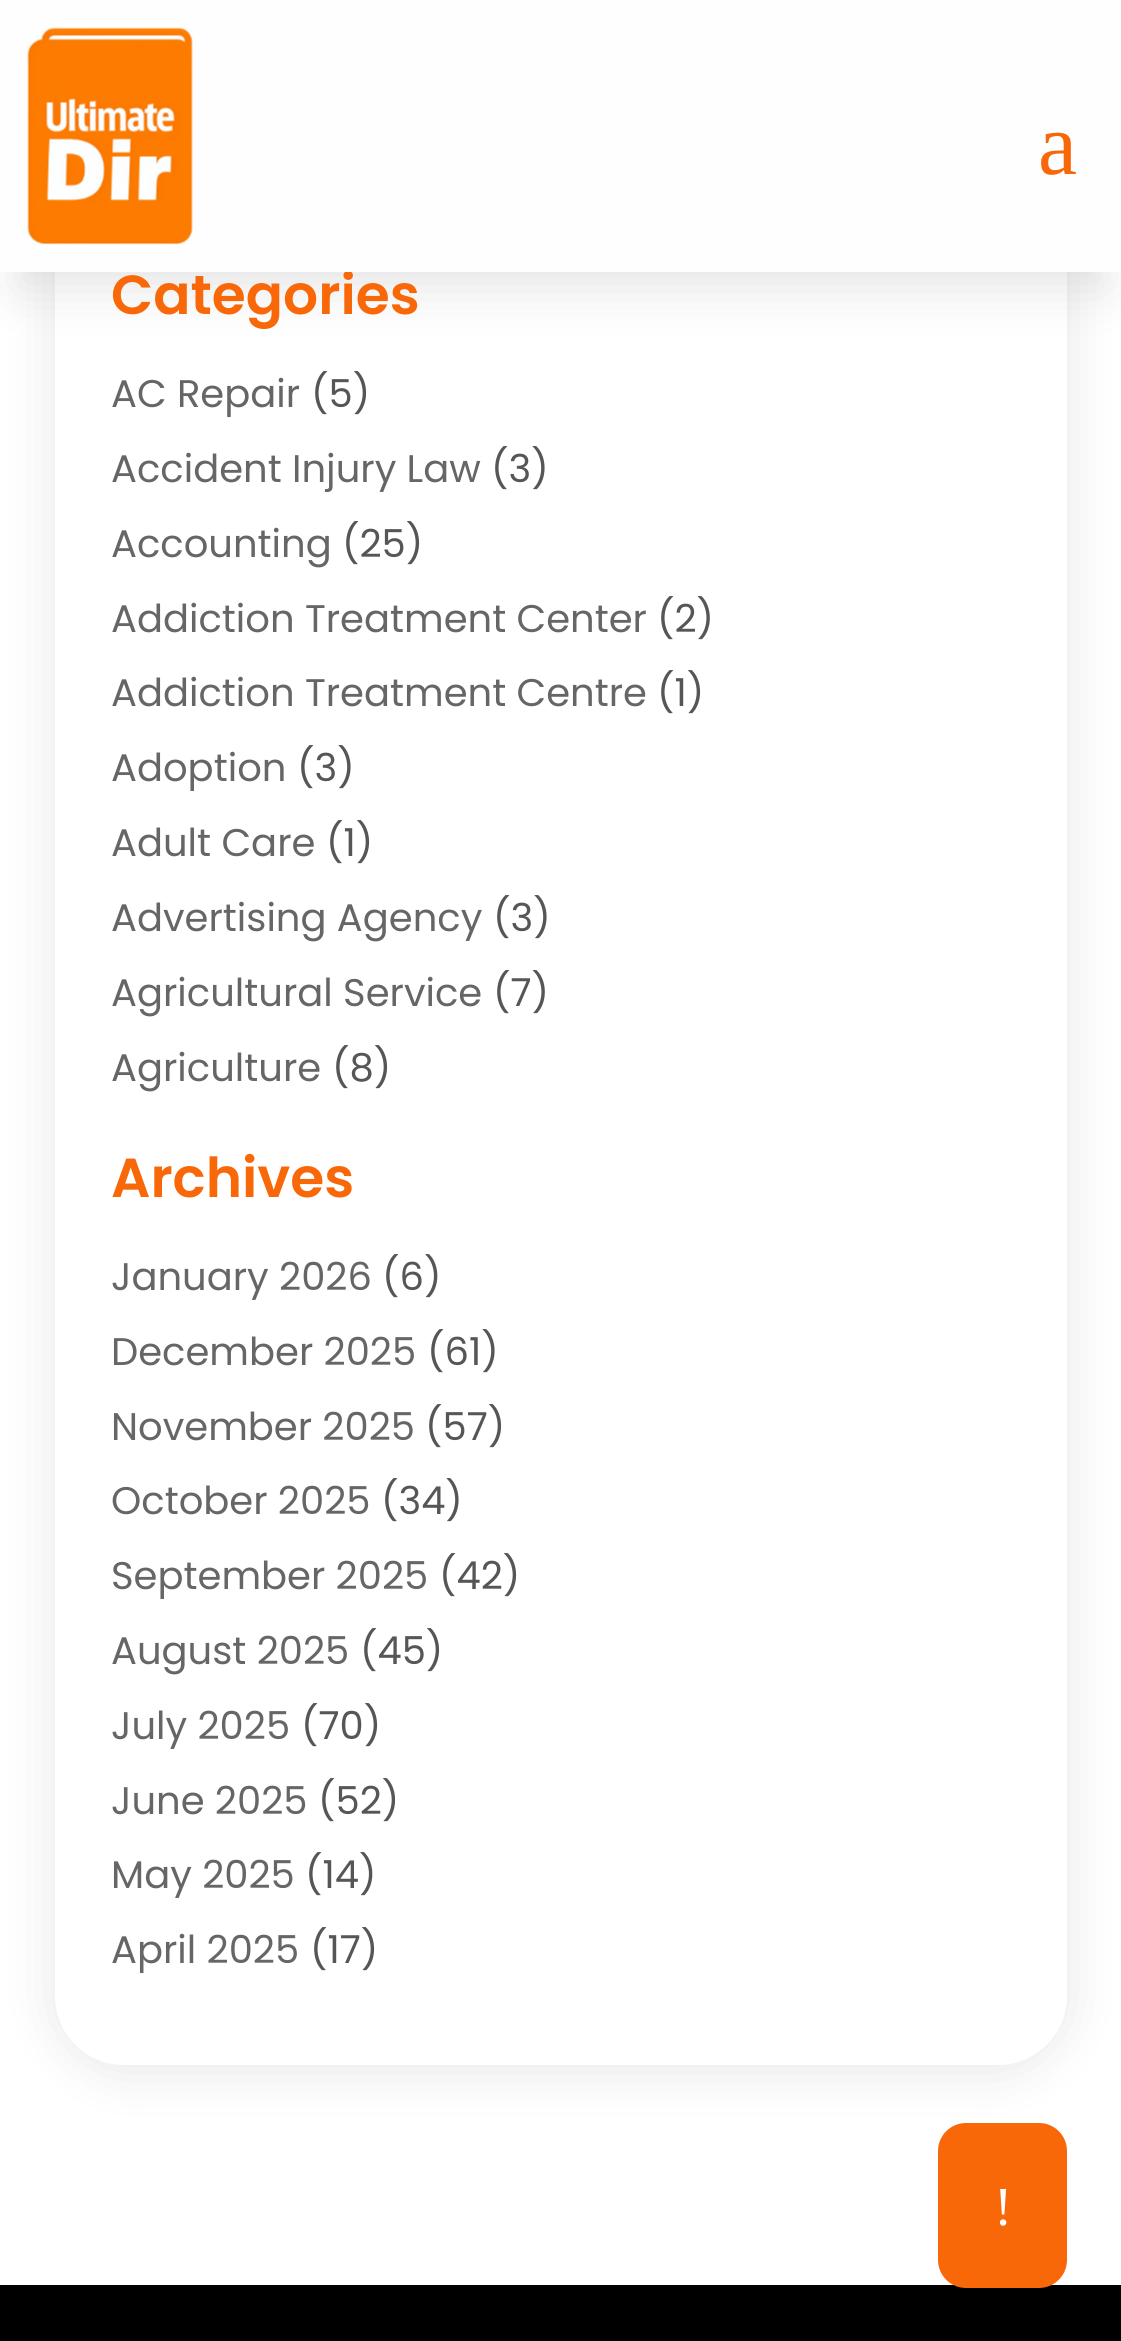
import math
import cairo



def rounded_rect(context, x, y, w, h, r):
    context.new_sub_path()
    for i, (u, v) in enumerate([(x + w - r, y + h - r), (x + r, y + h - r), (x + r, y + r), (x + w - r, y + r)]):
        context.arc(u, v, r, i * math.pi / 2, (i + 1) * math.pi / 2)
    context.close_path()


def draw_shadow(context, x, y, w, h, r, blur, alpha):
    context.push_group_with_content(cairo.Content.ALPHA)
    context.set_operator(cairo.Operator.SOURCE)
    for i in range(15, -16, -2):
        e = blur * i / 6
        if min(w, h) + 2 * e > 0:
            context.set_source_rgba(0, 0, 0, alpha * math.erfc((i - 1) / 8.5) / 2)
            rounded_rect(context, x - e, y - e, w + 2 * e, h + 2 * e, max(0, min(r + e + blur * .6, min(w, h) / 2 + e)))
            context.fill()
    context.mask(context.pop_group())


def draw_image(context, path, x, y, w, h):
    context.save()
    context.set_source_surface(cairo.ImageSurface.create_from_png(path), x, y)
    context.rectangle(x, y, w, h)
    context.fill()
    context.restore()


def draw(context):
    context.set_source_rgb(1, 1, 1)
    context.paint()
    context.set_source_rgb(0, 0, 0)
    draw_shadow(context, 55, -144, 1012, 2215, 69, 25, 0.1)
    context.set_source_rgb(1, 1, 1)
    rounded_rect(context, 55, -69, 1012, 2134, 69)
    context.fill()
    context.set_source_rgb(0, 0, 0)
    draw_shadow(context, 17, 50, 1089, 239, 0, 25, 0.1)
    context.set_source_rgb(0, 0, 0)
    context.rectangle(0, 2285, 1121, 56)
    context.fill()
    context.set_source_rgb(248 / 255, 103 / 255, 8 / 255)
    rounded_rect(context, 938, 2123, 129, 165, 28)
    context.fill()
    context.select_font_face("Poppins SemiBold")
    context.set_font_size(55)
    context.move_to(111, 314)
    context.show_text("Categories")
    context.set_source_rgb(254 / 255, 254 / 255, 254 / 255)
    context.rectangle(0, 0, 1121, 272)
    context.fill()
    context.select_font_face("Liberation Serif")
    context.set_font_size(88)
    context.set_source_rgb(248 / 255, 103 / 255, 8 / 255)
    context.move_to(1038, 174)
    context.show_text("a")
    draw_image(context, "images/1.png", 27, 27, 166, 218)
    context.select_font_face("Poppins")
    context.set_font_size(38.5)
    context.set_source_rgb(102 / 255, 102 / 255, 102 / 255)
    context.move_to(111, 407)
    context.show_text("AC Repair")
    context.set_source_rgb(86 / 255, 86 / 255, 86 / 255)
    context.move_to(311, 407)
    context.show_text("(5)")
    context.set_source_rgb(102 / 255, 102 / 255, 102 / 255)
    context.move_to(111, 482)
    context.show_text("Accident Injury Law")
    context.set_source_rgb(86 / 255, 86 / 255, 86 / 255)
    context.move_to(491, 482)
    context.show_text("(3)")
    context.set_source_rgb(102 / 255, 102 / 255, 102 / 255)
    context.move_to(111, 557)
    context.show_text("Accounting")
    context.set_source_rgb(86 / 255, 86 / 255, 86 / 255)
    context.move_to(342, 557)
    context.show_text("(25)")
    context.set_source_rgb(102 / 255, 102 / 255, 102 / 255)
    context.move_to(111, 632)
    context.show_text("Addiction Treatment Center")
    context.set_source_rgb(86 / 255, 86 / 255, 86 / 255)
    context.move_to(657, 632)
    context.show_text("(2)")
    context.set_source_rgb(102 / 255, 102 / 255, 102 / 255)
    context.move_to(111, 706)
    context.show_text("Addiction Treatment Centre")
    context.set_source_rgb(86 / 255, 86 / 255, 86 / 255)
    context.move_to(657, 706)
    context.show_text("(1)")
    context.set_source_rgb(102 / 255, 102 / 255, 102 / 255)
    context.move_to(111, 781)
    context.show_text("Adoption")
    context.set_source_rgb(86 / 255, 86 / 255, 86 / 255)
    context.move_to(297, 781)
    context.show_text("(3)")
    context.set_source_rgb(102 / 255, 102 / 255, 102 / 255)
    context.move_to(111, 856)
    context.show_text("Adult Care")
    context.set_source_rgb(86 / 255, 86 / 255, 86 / 255)
    context.move_to(326, 856)
    context.show_text("(1)")
    context.set_source_rgb(102 / 255, 102 / 255, 102 / 255)
    context.move_to(111, 931)
    context.show_text("Advertising Agency")
    context.set_source_rgb(86 / 255, 86 / 255, 86 / 255)
    context.move_to(493, 931)
    context.show_text("(3)")
    context.set_source_rgb(102 / 255, 102 / 255, 102 / 255)
    context.move_to(111, 1006)
    context.show_text("Agricultural Service")
    context.set_source_rgb(86 / 255, 86 / 255, 86 / 255)
    context.move_to(493, 1006)
    context.show_text("(7)")
    context.set_source_rgb(102 / 255, 102 / 255, 102 / 255)
    context.move_to(111, 1081)
    context.show_text("Agriculture")
    context.set_source_rgb(86 / 255, 86 / 255, 86 / 255)
    context.move_to(332, 1081)
    context.show_text("(8)")
    context.select_font_face("Poppins SemiBold")
    context.set_font_size(55)
    context.set_source_rgb(248 / 255, 103 / 255, 8 / 255)
    context.move_to(111, 1197)
    context.show_text("Archives")
    context.select_font_face("Poppins")
    context.set_font_size(38.5)
    context.set_source_rgb(102 / 255, 102 / 255, 102 / 255)
    context.move_to(111, 1290)
    context.show_text("January 2026")
    context.set_source_rgb(86 / 255, 86 / 255, 86 / 255)
    context.move_to(382, 1290)
    context.show_text("(6)")
    context.set_source_rgb(102 / 255, 102 / 255, 102 / 255)
    context.move_to(111, 1365)
    context.show_text("December 2025")
    context.set_source_rgb(86 / 255, 86 / 255, 86 / 255)
    context.move_to(427, 1365)
    context.show_text("(61)")
    context.set_source_rgb(102 / 255, 102 / 255, 102 / 255)
    context.move_to(111, 1440)
    context.show_text("November 2025")
    context.set_source_rgb(86 / 255, 86 / 255, 86 / 255)
    context.move_to(425, 1440)
    context.show_text("(57)")
    context.set_source_rgb(102 / 255, 102 / 255, 102 / 255)
    context.move_to(111, 1514)
    context.show_text("October 2025")
    context.set_source_rgb(86 / 255, 86 / 255, 86 / 255)
    context.move_to(381, 1514)
    context.show_text("(34)")
    context.set_source_rgb(102 / 255, 102 / 255, 102 / 255)
    context.move_to(111, 1589)
    context.show_text("September 2025")
    context.set_source_rgb(86 / 255, 86 / 255, 86 / 255)
    context.move_to(439, 1589)
    context.show_text("(42)")
    context.set_source_rgb(102 / 255, 102 / 255, 102 / 255)
    context.move_to(111, 1664)
    context.show_text("August 2025")
    context.set_source_rgb(86 / 255, 86 / 255, 86 / 255)
    context.move_to(360, 1664)
    context.show_text("(45)")
    context.set_source_rgb(102 / 255, 102 / 255, 102 / 255)
    context.move_to(111, 1739)
    context.show_text("July 2025")
    context.set_source_rgb(86 / 255, 86 / 255, 86 / 255)
    context.move_to(301, 1739)
    context.show_text("(70)")
    context.set_source_rgb(102 / 255, 102 / 255, 102 / 255)
    context.move_to(111, 1814)
    context.show_text("June 2025")
    context.set_source_rgb(86 / 255, 86 / 255, 86 / 255)
    context.move_to(318, 1814)
    context.show_text("(52)")
    context.set_source_rgb(102 / 255, 102 / 255, 102 / 255)
    context.move_to(111, 1888)
    context.show_text("May 2025")
    context.set_source_rgb(86 / 255, 86 / 255, 86 / 255)
    context.move_to(305, 1888)
    context.show_text("(14)")
    context.set_source_rgb(102 / 255, 102 / 255, 102 / 255)
    context.move_to(111, 1963)
    context.show_text("April 2025")
    context.set_source_rgb(86 / 255, 86 / 255, 86 / 255)
    context.move_to(310, 1963)
    context.show_text("(17)")
    context.select_font_face("Liberation Serif")
    context.set_font_size(55)
    context.set_source_rgb(1, 1, 1)
    context.move_to(994, 2225)
    context.show_text("!")


surface = cairo.ImageSurface(cairo.Format.RGB24, 1121, 2341)
context = cairo.Context(surface)
options = cairo.FontOptions()
options.set_hint_metrics(cairo.HintMetrics.OFF)
options.set_hint_style(cairo.HintStyle.NONE)
context.set_font_options(options)
context.set_miter_limit(4)
draw(context)
surface.write_to_png("out.png")
